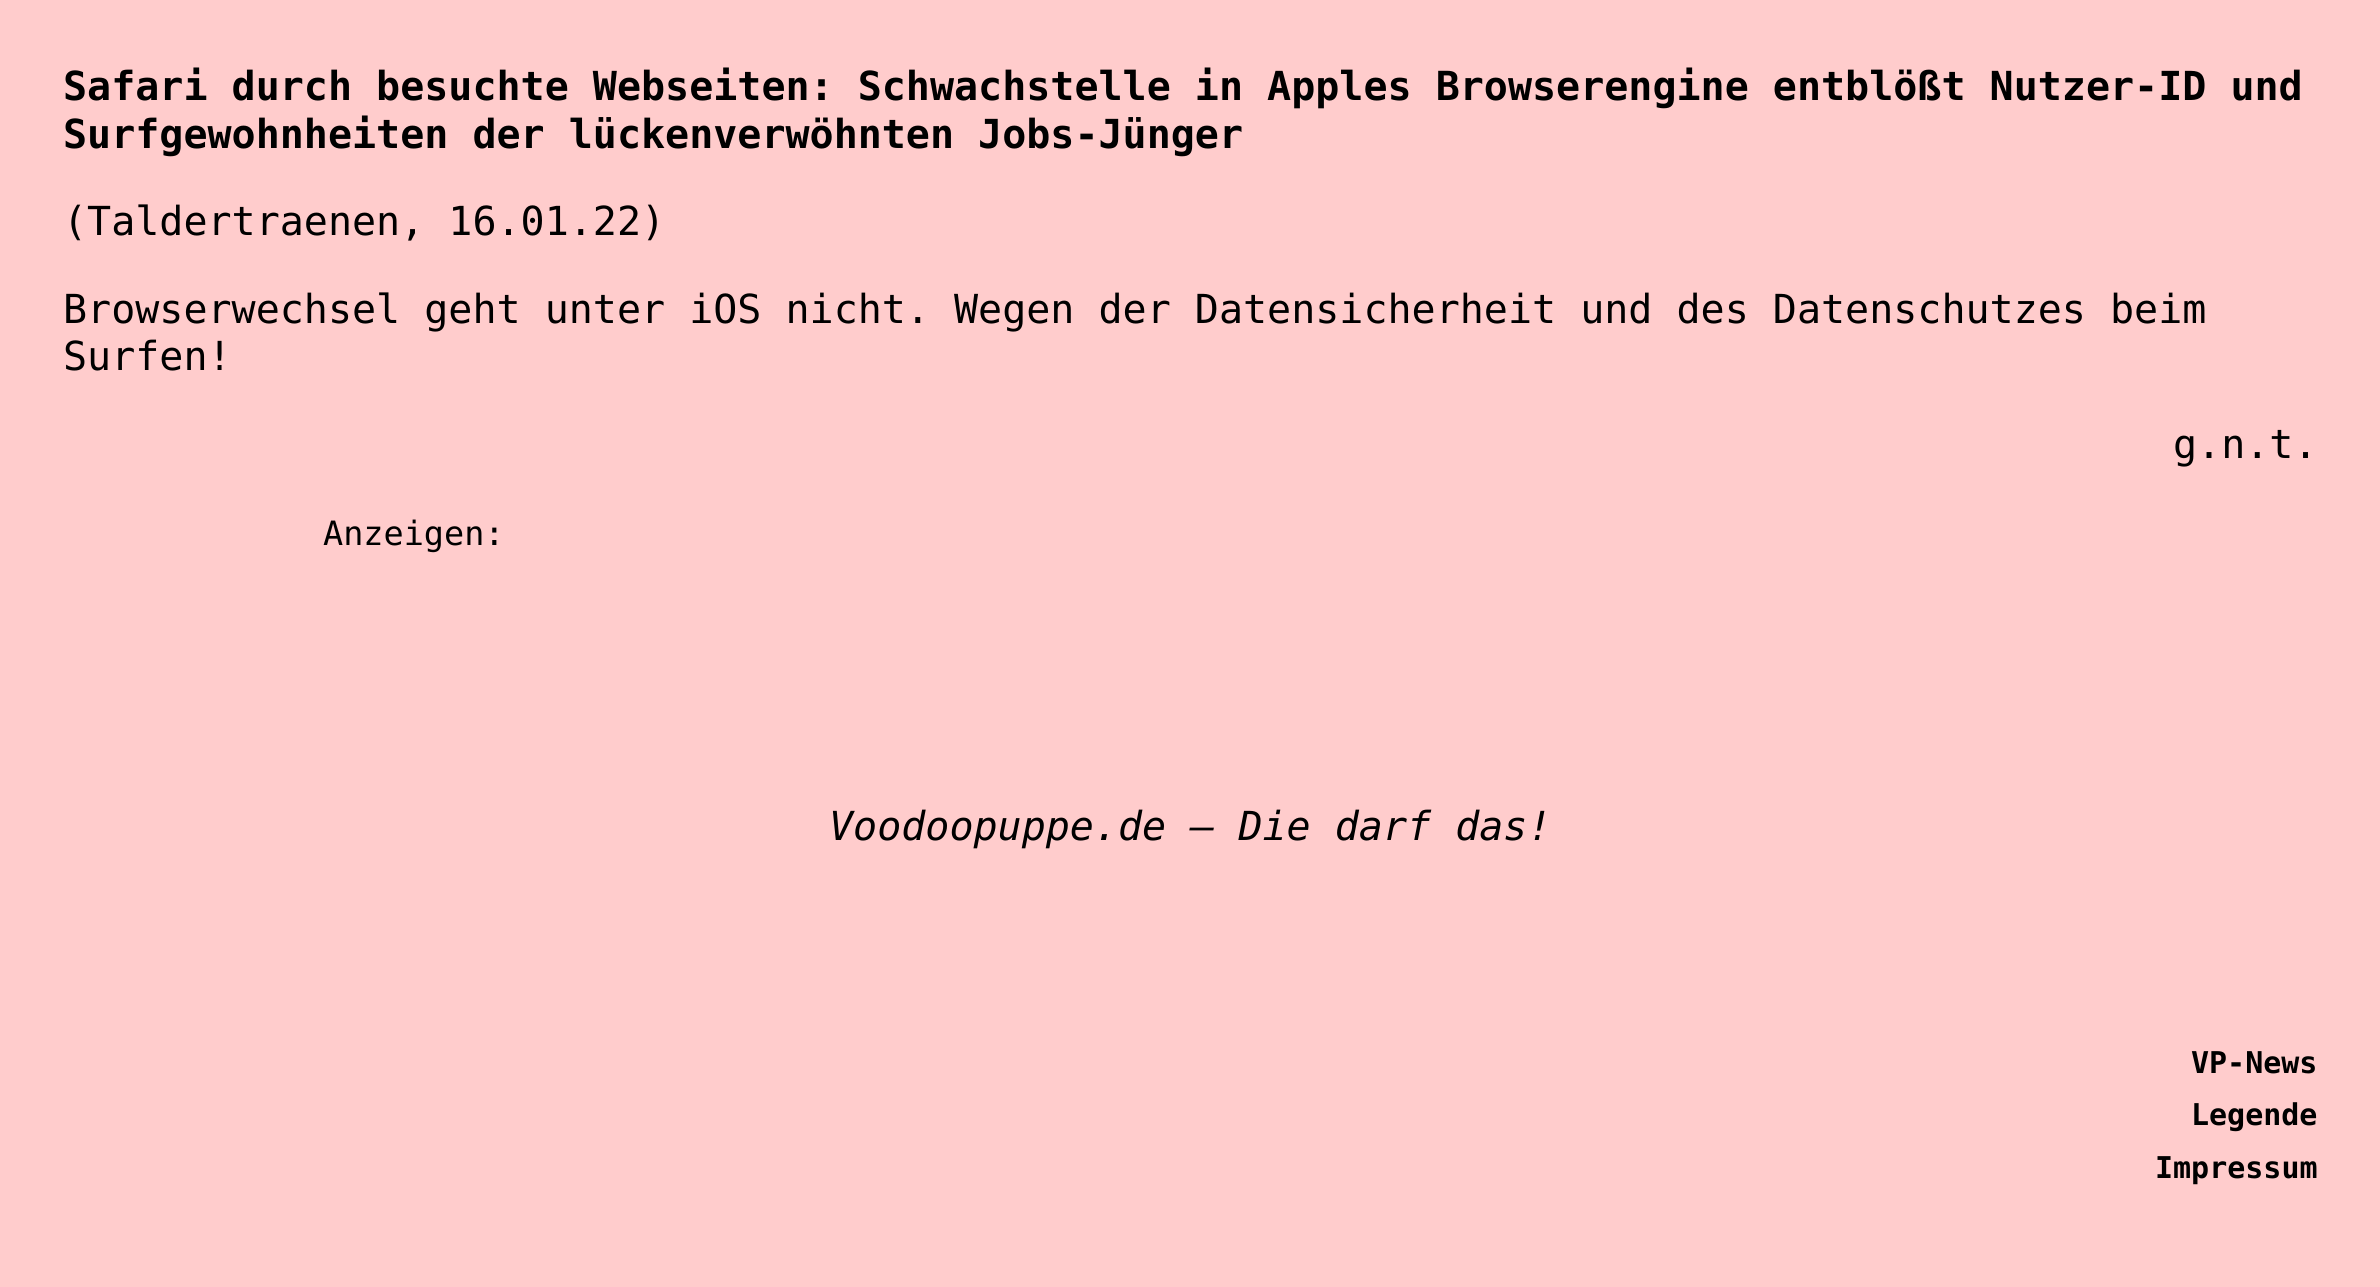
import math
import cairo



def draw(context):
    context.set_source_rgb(1, 204 / 255, 204 / 255)
    context.paint()
    context.select_font_face("DejaVu Sans Mono", cairo.FontSlant.NORMAL, cairo.FontWeight.BOLD)
    context.set_font_size(40)
    context.set_source_rgb(0, 0, 0)
    context.move_to(63, 100)
    context.show_text("Safari durch besuchte Webseiten: Schwachstelle in Apples Browserengine entblößt Nutzer-ID und")
    context.move_to(63, 148)
    context.show_text("Surfgewohnheiten der lückenverwöhnten Jobs-Jünger")
    context.select_font_face("DejaVu Sans Mono")
    context.move_to(63, 235)
    context.show_text("(Taldertraenen, 16.01.22)")
    context.move_to(63, 323)
    context.show_text("Browserwechsel geht unter iOS nicht. Wegen der Datensicherheit und des Datenschutzes beim")
    context.move_to(63, 370)
    context.show_text("Surfen!")
    context.move_to(2173, 458)
    context.show_text("g.n.t.")
    context.set_font_size(33.5)
    context.move_to(323, 545)
    context.show_text("Anzeigen:")
    context.select_font_face("DejaVu Sans Mono", cairo.FontSlant.ITALIC)
    context.set_font_size(40)
    context.move_to(829, 840)
    context.show_text("Voodoopuppe.de – Die darf das!")
    context.select_font_face("DejaVu Sans Mono", cairo.FontSlant.NORMAL, cairo.FontWeight.BOLD)
    context.set_font_size(30)
    context.move_to(2191, 1073)
    context.show_text("VP-News")
    context.move_to(2191, 1125)
    context.show_text("Legende")
    context.move_to(2155, 1178)
    context.show_text("Impressum")


surface = cairo.ImageSurface(cairo.Format.RGB24, 2380, 1287)
context = cairo.Context(surface)
options = cairo.FontOptions()
options.set_hint_metrics(cairo.HintMetrics.OFF)
options.set_hint_style(cairo.HintStyle.NONE)
context.set_font_options(options)
context.set_miter_limit(4)
draw(context)
surface.write_to_png("out.png")
